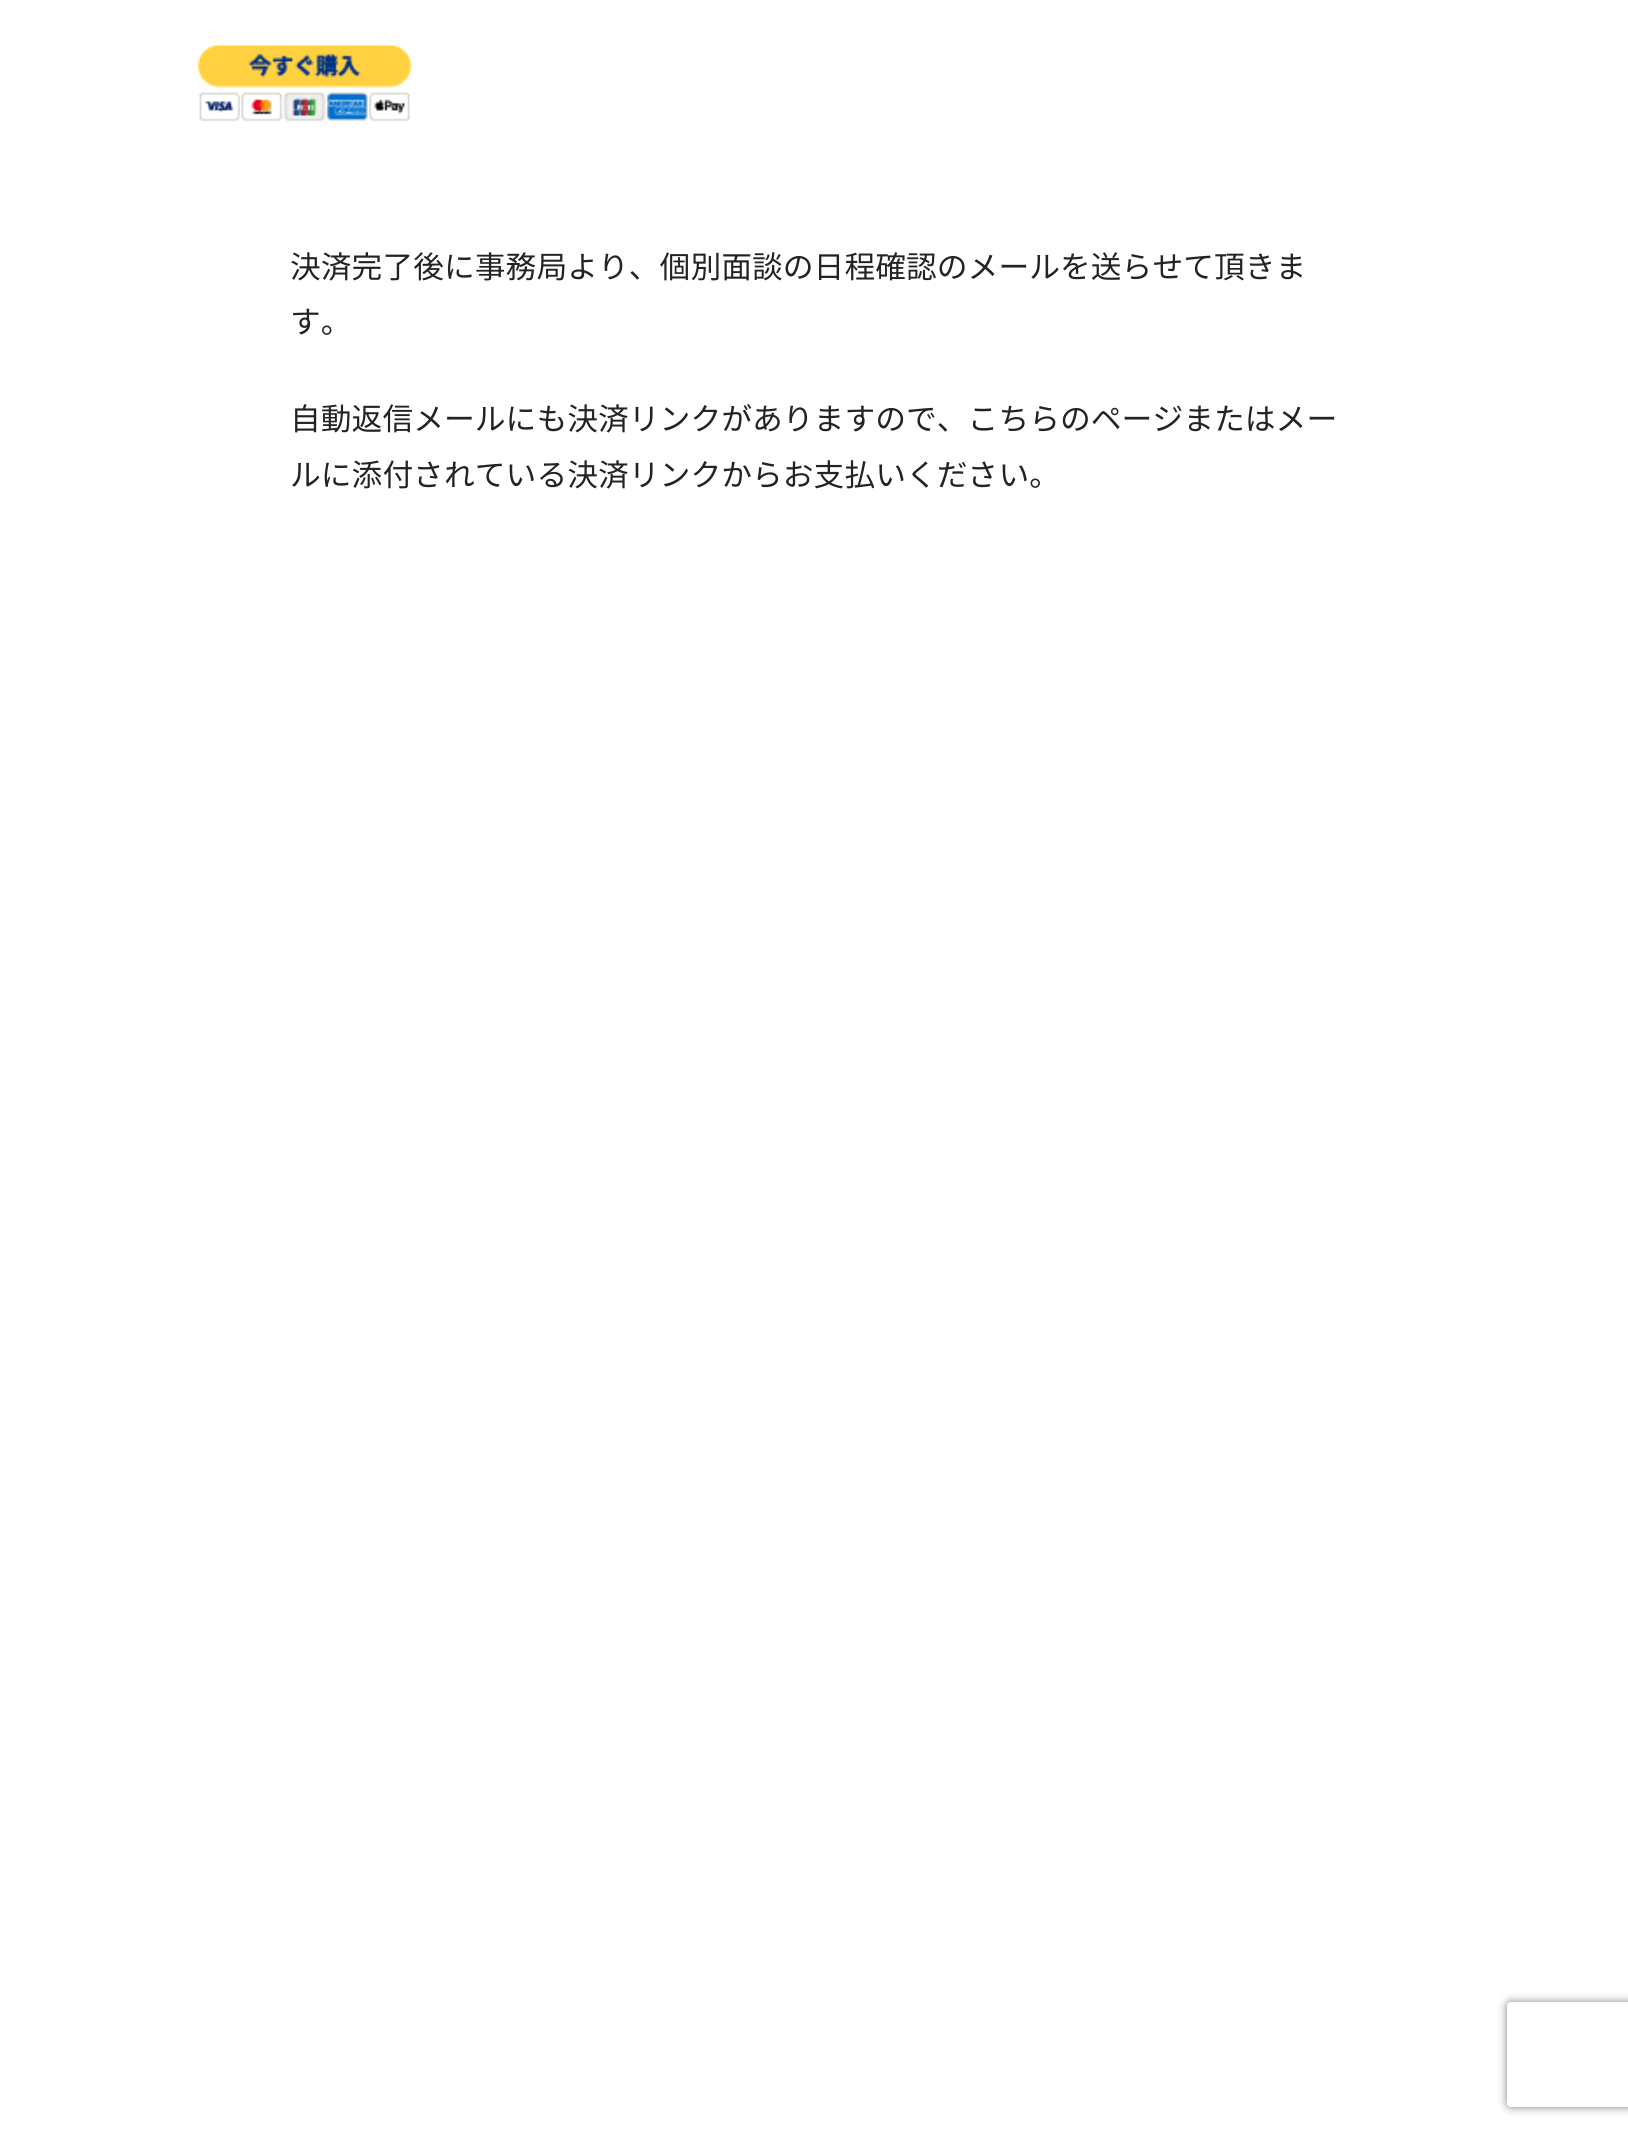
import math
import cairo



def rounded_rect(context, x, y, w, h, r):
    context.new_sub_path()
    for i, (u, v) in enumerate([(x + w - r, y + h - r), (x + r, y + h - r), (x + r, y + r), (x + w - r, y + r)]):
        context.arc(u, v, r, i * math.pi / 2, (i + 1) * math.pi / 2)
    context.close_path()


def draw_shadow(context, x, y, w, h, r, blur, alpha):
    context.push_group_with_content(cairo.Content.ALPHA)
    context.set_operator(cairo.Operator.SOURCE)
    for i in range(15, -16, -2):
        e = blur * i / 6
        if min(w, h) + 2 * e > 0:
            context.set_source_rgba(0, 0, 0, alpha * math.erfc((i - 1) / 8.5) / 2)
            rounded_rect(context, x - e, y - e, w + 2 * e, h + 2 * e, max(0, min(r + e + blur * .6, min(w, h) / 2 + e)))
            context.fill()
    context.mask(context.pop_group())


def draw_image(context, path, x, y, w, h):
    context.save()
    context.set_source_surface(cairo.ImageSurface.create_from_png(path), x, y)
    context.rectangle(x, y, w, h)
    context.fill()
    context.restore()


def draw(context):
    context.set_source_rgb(1, 1, 1)
    context.paint()
    draw_image(context, "images/1.png", 197, 45, 215, 77)
    context.save()
    context.set_fill_rule(cairo.FillRule.EVEN_ODD)
    context.new_path()
    context.move_to(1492, 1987)
    context.line_to(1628, 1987)
    context.line_to(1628, 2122)
    context.line_to(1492, 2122)
    context.close_path()
    context.move_to(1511, 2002)
    context.line_to(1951, 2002)
    context.curve_to(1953, 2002, 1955, 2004, 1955, 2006)
    context.line_to(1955, 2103)
    context.curve_to(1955, 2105, 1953, 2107, 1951, 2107)
    context.line_to(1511, 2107)
    context.curve_to(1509, 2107, 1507, 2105, 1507, 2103)
    context.line_to(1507, 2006)
    context.curve_to(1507, 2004, 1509, 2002, 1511, 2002)
    context.close_path()
    context.clip()
    context.set_source_rgb(128 / 255, 128 / 255, 128 / 255)
    draw_shadow(context, 1507, 2002, 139, 105, 4, 4.5, 1)
    context.restore()
    context.select_font_face("Noto Sans JP")
    context.set_font_size(30.8)
    context.set_source_rgb(35 / 255, 35 / 255, 35 / 255)
    context.move_to(290, 278)
    context.show_text("決済完了後に事務局より、個別面談の日程確認のメールを送らせて頂きま")
    context.move_to(290, 333)
    context.show_text("す。")
    context.move_to(290, 430)
    context.show_text("自動返信メールにも決済リンクがありますので、こちらのページまたはメー")
    context.move_to(290, 486)
    context.show_text("ルに添付されている決済リンクからお支払いください。")


surface = cairo.ImageSurface(cairo.Format.RGB24, 1628, 2131)
context = cairo.Context(surface)
options = cairo.FontOptions()
options.set_hint_metrics(cairo.HintMetrics.OFF)
options.set_hint_style(cairo.HintStyle.NONE)
context.set_font_options(options)
context.set_miter_limit(4)
draw(context)
surface.write_to_png("out.png")
